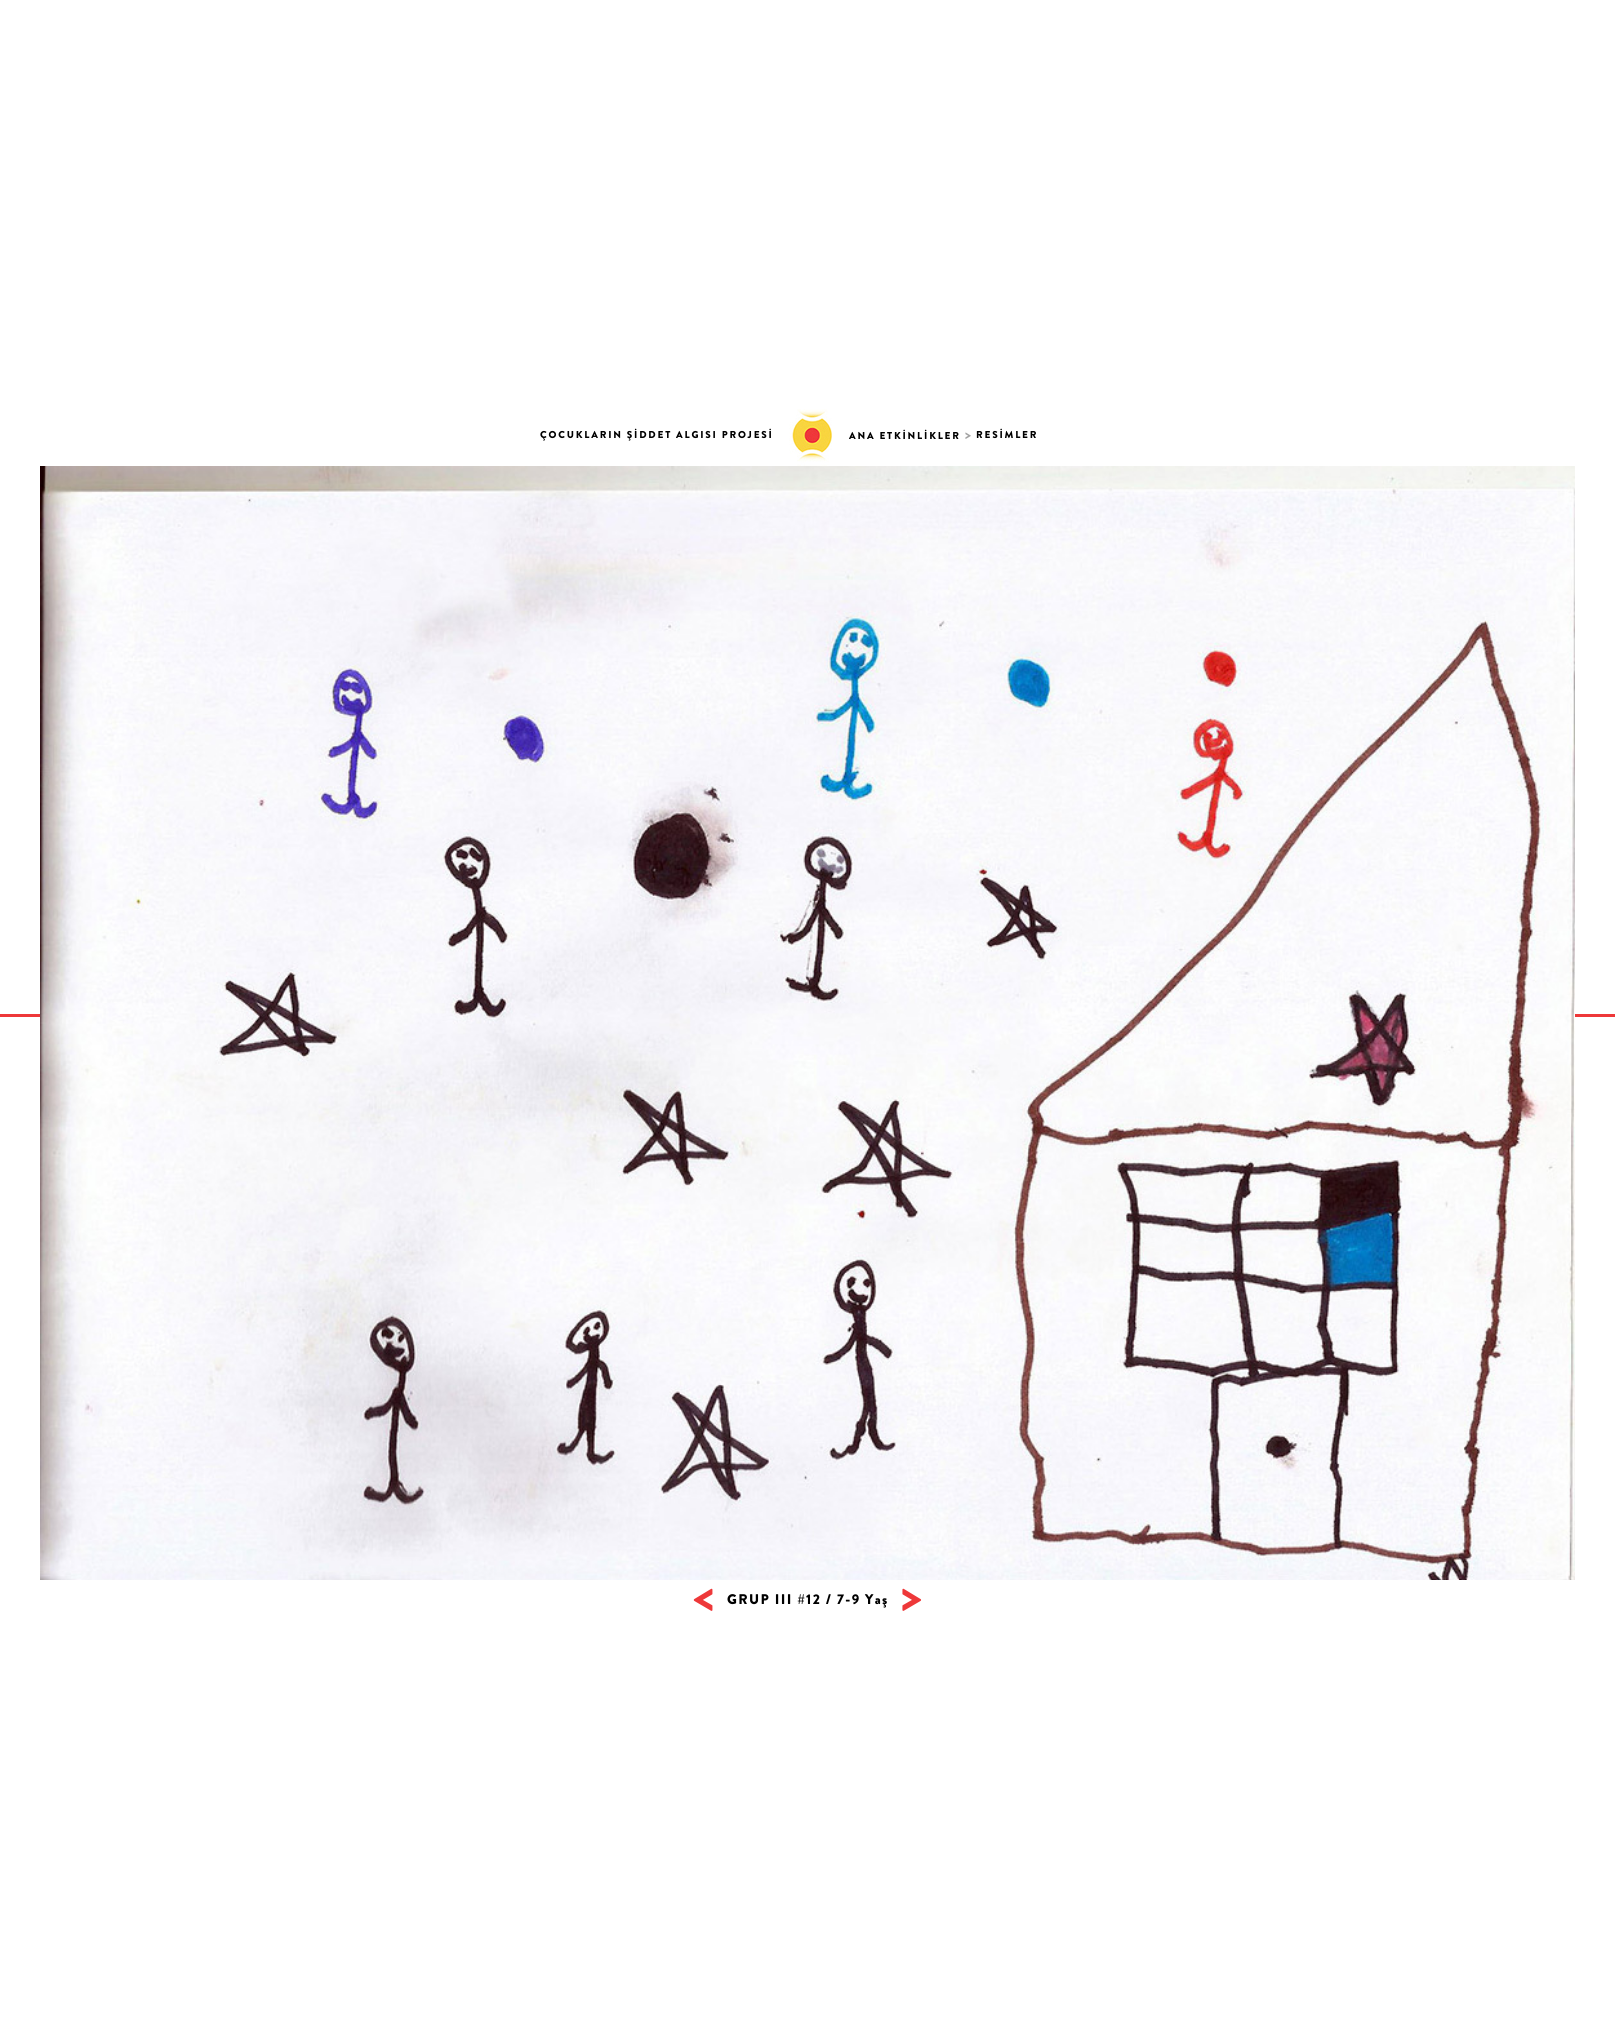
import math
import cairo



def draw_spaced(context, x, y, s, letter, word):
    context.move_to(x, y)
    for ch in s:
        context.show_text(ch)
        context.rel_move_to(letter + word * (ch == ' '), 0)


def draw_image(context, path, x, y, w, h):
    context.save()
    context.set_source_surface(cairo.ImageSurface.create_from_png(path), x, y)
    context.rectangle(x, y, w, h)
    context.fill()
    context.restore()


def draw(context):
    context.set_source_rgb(1, 1, 1)
    context.paint()
    draw_image(context, "images/1.png", 789, 409, 43, 57)
    context.set_source_rgb(238 / 255, 56 / 255, 57 / 255)
    context.rectangle(0, 1014, 1615, 3)
    context.fill()
    draw_image(context, "images/2.png", 40, 466, 1535, 1114)
    context.select_font_face("Brandon Grotesque Black")
    context.set_font_size(10)
    context.set_source_rgb(0, 0, 0)
    draw_spaced(context, 540, 438, "ÇOCUKLARIN ŞİDDET ALGISI PROJESİ", 1.8, 0)
    draw_spaced(context, 849, 439, "ANA ETKİNLİKLER", 1.8, 0)
    context.set_font_size(14)
    context.set_source_rgb(162 / 255, 162 / 255, 162 / 255)
    context.move_to(965, 439)
    context.show_text(">")
    context.set_font_size(10)
    context.set_source_rgb(0, 0, 0)
    draw_spaced(context, 976, 438, "RESİMLER", 1.8, 0)
    context.set_font_size(48)
    context.set_source_rgb(238 / 255, 56 / 255, 57 / 255)
    context.move_to(693, 1611)
    context.show_text("<")
    context.set_font_size(14)
    context.set_source_rgb(0, 0, 0)
    draw_spaced(context, 727, 1604, "GRUP III #12 / 7-9 Yaş", 1.4, 0)
    context.set_font_size(48)
    context.set_source_rgb(238 / 255, 56 / 255, 57 / 255)
    context.move_to(901, 1611)
    context.show_text(">")


surface = cairo.ImageSurface(cairo.Format.RGB24, 1615, 2027)
context = cairo.Context(surface)
options = cairo.FontOptions()
options.set_hint_metrics(cairo.HintMetrics.OFF)
options.set_hint_style(cairo.HintStyle.NONE)
context.set_font_options(options)
context.set_miter_limit(4)
draw(context)
surface.write_to_png("out.png")
